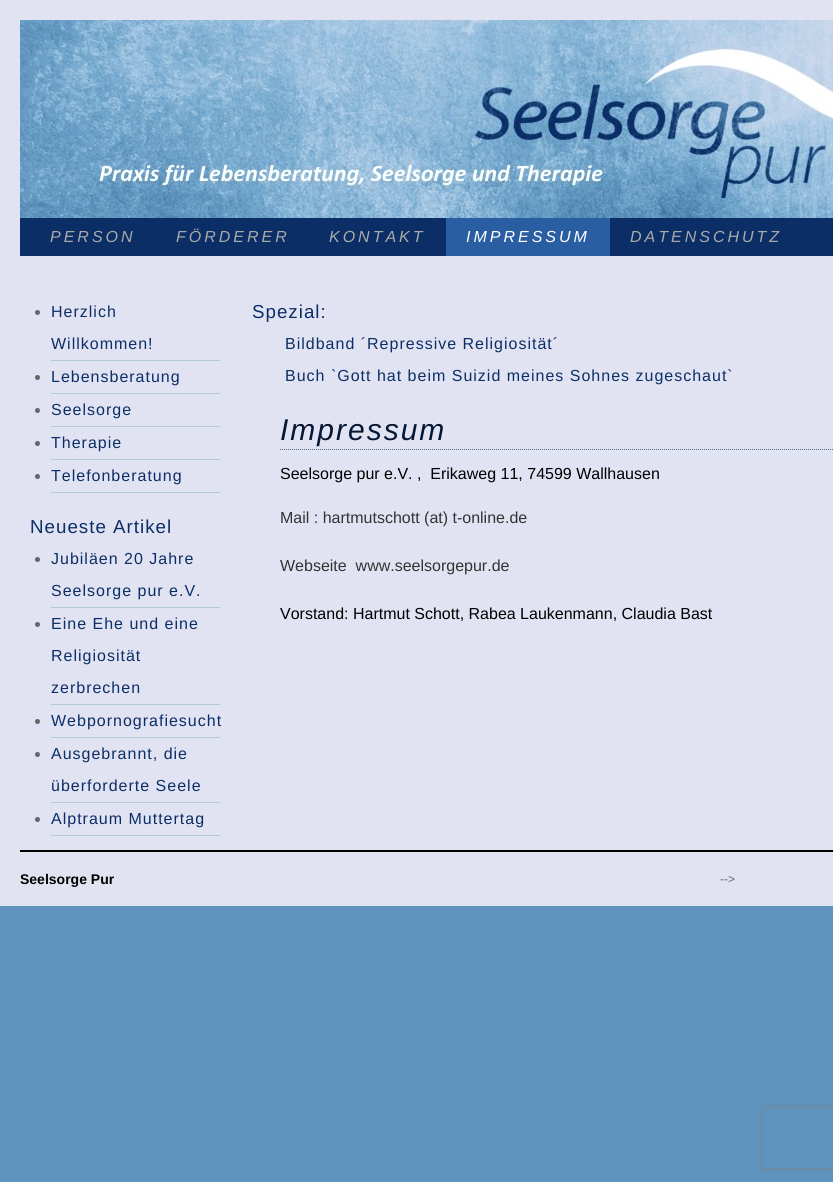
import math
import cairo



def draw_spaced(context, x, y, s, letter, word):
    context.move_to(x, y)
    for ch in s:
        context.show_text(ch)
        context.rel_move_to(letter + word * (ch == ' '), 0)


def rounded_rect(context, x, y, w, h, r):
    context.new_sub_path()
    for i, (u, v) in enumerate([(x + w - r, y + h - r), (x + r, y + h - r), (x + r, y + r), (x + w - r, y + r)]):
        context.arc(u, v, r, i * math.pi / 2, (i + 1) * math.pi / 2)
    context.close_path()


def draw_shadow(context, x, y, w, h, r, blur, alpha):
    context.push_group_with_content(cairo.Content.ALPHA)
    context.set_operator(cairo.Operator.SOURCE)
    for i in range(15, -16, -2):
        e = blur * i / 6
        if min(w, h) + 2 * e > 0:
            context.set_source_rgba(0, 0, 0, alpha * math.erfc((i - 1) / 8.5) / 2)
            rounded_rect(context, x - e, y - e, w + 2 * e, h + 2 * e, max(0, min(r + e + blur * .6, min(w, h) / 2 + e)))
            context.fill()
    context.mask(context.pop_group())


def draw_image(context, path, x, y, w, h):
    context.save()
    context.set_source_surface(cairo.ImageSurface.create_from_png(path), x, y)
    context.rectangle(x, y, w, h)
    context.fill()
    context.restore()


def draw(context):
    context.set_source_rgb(94 / 255, 147 / 255, 189 / 255)
    context.paint()
    context.set_source_rgb(225 / 255, 227 / 255, 242 / 255)
    context.rectangle(0, 0, 833, 906)
    context.fill()
    draw_image(context, "images/1.png", 20, 20, 813, 198)
    context.set_source_rgb(11 / 255, 46 / 255, 102 / 255)
    context.rectangle(20, 218, 813, 38)
    context.fill()
    context.set_source_rgb(41 / 255, 94 / 255, 162 / 255)
    context.rectangle(446, 218, 164, 38)
    context.fill()
    context.set_source_rgb(180 / 255, 202 / 255, 207 / 255)
    context.rectangle(51, 360, 169, 1)
    context.fill()
    context.set_source_rgb(102 / 255, 102 / 255, 102 / 255)
    context.arc(37.5, 312.5, 2.5, 0, 2 * math.pi)
    context.fill()
    context.set_source_rgb(180 / 255, 202 / 255, 207 / 255)
    context.rectangle(51, 393, 169, 1)
    context.fill()
    context.set_source_rgb(102 / 255, 102 / 255, 102 / 255)
    context.arc(37.5, 377.5, 2.5, 0, 2 * math.pi)
    context.fill()
    context.set_source_rgb(180 / 255, 202 / 255, 207 / 255)
    context.rectangle(51, 426, 169, 1)
    context.fill()
    context.set_source_rgb(102 / 255, 102 / 255, 102 / 255)
    context.arc(37.5, 410.5, 2.5, 0, 2 * math.pi)
    context.fill()
    context.set_source_rgb(180 / 255, 202 / 255, 207 / 255)
    context.rectangle(51, 459, 169, 1)
    context.fill()
    context.set_source_rgb(102 / 255, 102 / 255, 102 / 255)
    context.arc(37.5, 443.5, 2.5, 0, 2 * math.pi)
    context.fill()
    context.set_source_rgb(180 / 255, 202 / 255, 207 / 255)
    context.rectangle(51, 492, 169, 1)
    context.fill()
    context.set_source_rgb(102 / 255, 102 / 255, 102 / 255)
    context.arc(37.5, 476.5, 2.5, 0, 2 * math.pi)
    context.fill()
    context.set_source_rgb(180 / 255, 202 / 255, 207 / 255)
    context.rectangle(51, 607, 169, 1)
    context.fill()
    context.set_source_rgb(102 / 255, 102 / 255, 102 / 255)
    context.arc(37.5, 559.5, 2.5, 0, 2 * math.pi)
    context.fill()
    context.set_source_rgb(180 / 255, 202 / 255, 207 / 255)
    context.rectangle(51, 704, 169, 1)
    context.fill()
    context.set_source_rgb(102 / 255, 102 / 255, 102 / 255)
    context.arc(37.5, 624.5, 2.5, 0, 2 * math.pi)
    context.fill()
    context.set_source_rgb(180 / 255, 202 / 255, 207 / 255)
    context.rectangle(51, 737, 169, 1)
    context.fill()
    context.set_source_rgb(102 / 255, 102 / 255, 102 / 255)
    context.arc(37.5, 721.5, 2.5, 0, 2 * math.pi)
    context.fill()
    context.set_source_rgb(180 / 255, 202 / 255, 207 / 255)
    context.rectangle(51, 802, 169, 1)
    context.fill()
    context.set_source_rgb(102 / 255, 102 / 255, 102 / 255)
    context.arc(37.5, 754.5, 2.5, 0, 2 * math.pi)
    context.fill()
    context.set_source_rgb(180 / 255, 202 / 255, 207 / 255)
    context.rectangle(51, 835, 169, 1)
    context.fill()
    context.set_source_rgb(102 / 255, 102 / 255, 102 / 255)
    context.arc(37.5, 819.5, 2.5, 0, 2 * math.pi)
    context.fill()
    context.new_path()
    context.move_to(280, 449.5)
    context.line_to(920, 449.5)
    context.set_source_rgb(85 / 255, 109 / 255, 143 / 255)
    context.set_line_width(1)
    context.set_dash([1, 1])
    context.stroke()
    context.set_source_rgb(0, 0, 0)
    context.rectangle(20, 850, 813, 2)
    context.fill()
    context.save()
    context.set_fill_rule(cairo.FillRule.EVEN_ODD)
    context.new_path()
    context.move_to(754, 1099)
    context.line_to(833, 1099)
    context.line_to(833, 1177)
    context.line_to(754, 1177)
    context.close_path()
    context.move_to(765, 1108)
    context.line_to(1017, 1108)
    context.curve_to(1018, 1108, 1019, 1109, 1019, 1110)
    context.line_to(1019, 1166)
    context.curve_to(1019, 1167, 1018, 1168, 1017, 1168)
    context.line_to(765, 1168)
    context.curve_to(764, 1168, 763, 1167, 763, 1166)
    context.line_to(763, 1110)
    context.curve_to(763, 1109, 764, 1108, 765, 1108)
    context.close_path()
    context.clip()
    context.set_source_rgb(128 / 255, 128 / 255, 128 / 255)
    draw_shadow(context, 763, 1108, 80, 60, 2, 2.5, 1)
    context.restore()
    context.select_font_face("Liberation Sans", cairo.FontSlant.ITALIC)
    context.set_font_size(16)
    context.set_source_rgb(170 / 255, 170 / 255, 170 / 255)
    draw_spaced(context, 50, 242, "PERSON", 3, 0)
    draw_spaced(context, 176, 242, "FÖRDERER", 3, 0)
    draw_spaced(context, 329, 242, "KONTAKT", 3, 0)
    context.set_source_rgb(1, 1, 1)
    draw_spaced(context, 466, 242, "IMPRESSUM", 3, 0)
    context.set_source_rgb(170 / 255, 170 / 255, 170 / 255)
    draw_spaced(context, 630, 242, "DATENSCHUTZ", 3, 0)
    context.select_font_face("Liberation Sans")
    context.set_source_rgb(11 / 255, 46 / 255, 102 / 255)
    draw_spaced(context, 51, 317, "Herzlich", 1, 0)
    draw_spaced(context, 51, 349, "Willkommen!", 1, 0)
    draw_spaced(context, 51, 382, "Lebensberatung", 1, 0)
    draw_spaced(context, 51, 415, "Seelsorge", 1, 0)
    draw_spaced(context, 51, 448, "Therapie", 1, 0)
    draw_spaced(context, 51, 481, "Telefonberatung", 1, 0)
    context.set_font_size(18.75)
    draw_spaced(context, 30, 533, "Neueste Artikel", 1, 0)
    context.set_font_size(16)
    draw_spaced(context, 51, 564, "Jubiläen 20 Jahre", 1, 0)
    draw_spaced(context, 51, 596, "Seelsorge pur e.V.", 1, 0)
    draw_spaced(context, 51, 629, "Eine Ehe und eine", 1, 0)
    draw_spaced(context, 51, 661, "Religiosität", 1, 0)
    draw_spaced(context, 51, 693, "zerbrechen", 1, 0)
    draw_spaced(context, 51, 726, "Webpornografiesucht", 1, 0)
    draw_spaced(context, 51, 759, "Ausgebrannt, die", 1, 0)
    draw_spaced(context, 51, 791, "überforderte Seele", 1, 0)
    draw_spaced(context, 51, 824, "Alptraum Muttertag", 1, 0)
    context.set_font_size(18.75)
    draw_spaced(context, 252, 318, "Spezial:", 1, 0)
    context.set_font_size(16)
    draw_spaced(context, 285, 349, "Bildband ´Repressive Religiosität´", 1, 0)
    draw_spaced(context, 285, 381, "Buch `Gott hat beim Suizid meines Sohnes zugeschaut`", 1, 0)
    context.select_font_face("Liberation Sans", cairo.FontSlant.ITALIC)
    context.set_font_size(30)
    context.set_source_rgb(5 / 255, 23 / 255, 53 / 255)
    draw_spaced(context, 280, 440, "Impressum", 2, 0)
    context.select_font_face("Liberation Sans")
    context.set_font_size(16)
    context.set_source_rgb(0, 0, 0)
    context.move_to(280, 479)
    context.show_text("Seelsorge pur e.V. ,  Erikaweg 11, 74599 Wallhausen")
    context.set_source_rgb(51 / 255, 51 / 255, 51 / 255)
    context.move_to(280, 523)
    context.show_text("Mail : hartmutschott (at) t-online.de")
    context.move_to(280, 571)
    context.show_text("Webseite  www.seelsorgepur.de")
    context.set_source_rgb(0, 0, 0)
    context.move_to(280, 619)
    context.show_text("Vorstand: Hartmut Schott, Rabea Laukenmann, Claudia Bast")
    context.select_font_face("Liberation Sans", cairo.FontSlant.NORMAL, cairo.FontWeight.BOLD)
    context.set_font_size(14)
    context.move_to(20, 884)
    context.show_text("Seelsorge Pur")
    context.select_font_face("Liberation Sans")
    context.set_font_size(12)
    context.set_source_rgb(102 / 255, 102 / 255, 102 / 255)
    context.move_to(720, 883)
    context.show_text("-->")


surface = cairo.ImageSurface(cairo.Format.RGB24, 833, 1182)
context = cairo.Context(surface)
options = cairo.FontOptions()
options.set_hint_metrics(cairo.HintMetrics.OFF)
options.set_hint_style(cairo.HintStyle.NONE)
context.set_font_options(options)
context.set_miter_limit(4)
draw(context)
surface.write_to_png("out.png")
